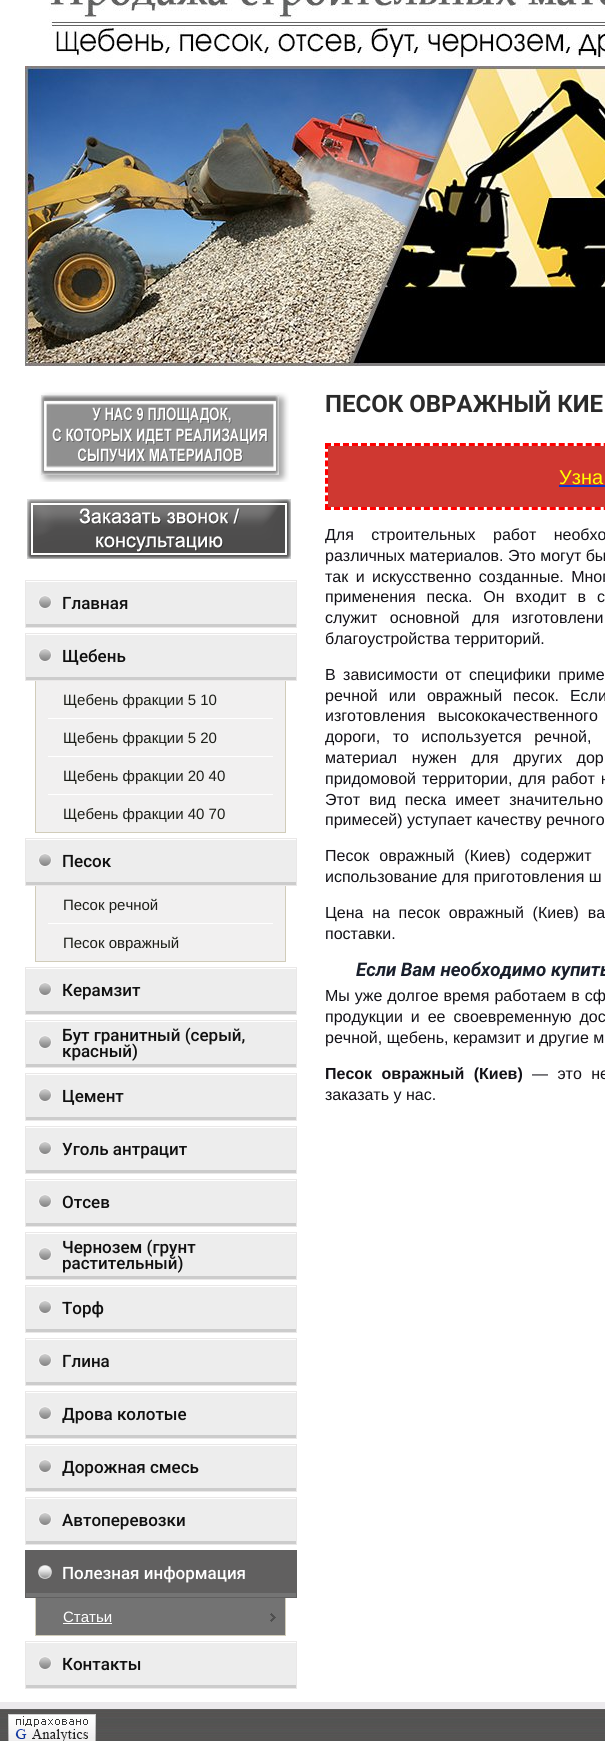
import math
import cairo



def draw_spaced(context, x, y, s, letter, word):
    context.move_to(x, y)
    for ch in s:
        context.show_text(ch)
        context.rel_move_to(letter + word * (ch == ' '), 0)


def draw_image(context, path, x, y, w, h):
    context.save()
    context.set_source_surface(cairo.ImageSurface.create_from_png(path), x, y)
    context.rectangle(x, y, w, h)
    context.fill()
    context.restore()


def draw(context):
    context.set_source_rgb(1, 1, 1)
    context.paint()
    draw_image(context, "images/1.png", 49, 0, 556, 59)
    draw_image(context, "images/2.png", 25, 66, 580, 300)
    draw_image(context, "images/3.png", 39, 392, 250, 90)
    draw_image(context, "images/4.png", 27, 499, 264, 60)
    context.set_source_rgb(237 / 255, 237 / 255, 237 / 255)
    context.rectangle(26, 582, 270, 42)
    context.fill()
    draw_image(context, "images/5.png", 38, 595, 14, 14)
    context.set_source_rgb(204 / 255, 204 / 255, 204 / 255)
    context.rectangle(26, 624, 270, 3)
    context.fill()
    context.rectangle(25.5, 580.5, 271, 47)
    context.set_source_rgb(234 / 255, 232 / 255, 232 / 255)
    context.set_line_width(1)
    context.stroke()
    context.set_source_rgb(237 / 255, 237 / 255, 237 / 255)
    context.rectangle(26, 635, 270, 42)
    context.fill()
    draw_image(context, "images/5.png", 38, 648, 14, 14)
    context.set_source_rgb(204 / 255, 204 / 255, 204 / 255)
    context.rectangle(26, 677, 270, 3)
    context.fill()
    context.rectangle(25.5, 633.5, 271, 47)
    context.set_source_rgb(234 / 255, 232 / 255, 232 / 255)
    context.stroke()
    context.set_source_rgb(241 / 255, 240 / 255, 240 / 255)
    context.rectangle(36, 681, 249, 151)
    context.fill()
    context.set_source_rgb(209 / 255, 204 / 255, 185 / 255)
    context.rectangle(285, 681, 1, 152)
    context.fill()
    context.rectangle(35, 681, 1, 114)
    context.fill()
    context.set_source_rgb(1, 1, 1)
    context.rectangle(48, 718, 225, 1)
    context.fill()
    context.rectangle(48, 756, 225, 1)
    context.fill()
    context.rectangle(48, 794, 225, 1)
    context.fill()
    context.set_source_rgb(209 / 255, 204 / 255, 185 / 255)
    context.rectangle(35, 832, 251, 1)
    context.fill()
    context.rectangle(35, 795, 1, 38)
    context.fill()
    context.set_source_rgb(237 / 255, 237 / 255, 237 / 255)
    context.rectangle(26, 840, 270, 42)
    context.fill()
    draw_image(context, "images/5.png", 38, 853, 14, 14)
    context.set_source_rgb(204 / 255, 204 / 255, 204 / 255)
    context.rectangle(26, 882, 270, 3)
    context.fill()
    context.rectangle(25.5, 838.5, 271, 47)
    context.set_source_rgb(234 / 255, 232 / 255, 232 / 255)
    context.stroke()
    context.set_source_rgb(241 / 255, 240 / 255, 240 / 255)
    context.rectangle(36, 886, 249, 75)
    context.fill()
    context.set_source_rgb(209 / 255, 204 / 255, 185 / 255)
    context.rectangle(285, 886, 1, 76)
    context.fill()
    context.rectangle(35, 886, 1, 38)
    context.fill()
    context.set_source_rgb(1, 1, 1)
    context.rectangle(48, 923, 225, 1)
    context.fill()
    context.set_source_rgb(209 / 255, 204 / 255, 185 / 255)
    context.rectangle(35, 961, 251, 1)
    context.fill()
    context.rectangle(35, 924, 1, 38)
    context.fill()
    context.set_source_rgb(237 / 255, 237 / 255, 237 / 255)
    context.rectangle(26, 969, 270, 42)
    context.fill()
    draw_image(context, "images/5.png", 38, 982, 14, 14)
    context.set_source_rgb(204 / 255, 204 / 255, 204 / 255)
    context.rectangle(26, 1011, 270, 3)
    context.fill()
    context.rectangle(25.5, 967.5, 271, 47)
    context.set_source_rgb(234 / 255, 232 / 255, 232 / 255)
    context.stroke()
    context.set_source_rgb(237 / 255, 237 / 255, 237 / 255)
    context.rectangle(26, 1022, 270, 42)
    context.fill()
    draw_image(context, "images/5.png", 38, 1035, 14, 14)
    context.set_source_rgb(204 / 255, 204 / 255, 204 / 255)
    context.rectangle(26, 1064, 270, 3)
    context.fill()
    context.rectangle(25.5, 1020.5, 271, 47)
    context.set_source_rgb(234 / 255, 232 / 255, 232 / 255)
    context.stroke()
    context.set_source_rgb(237 / 255, 237 / 255, 237 / 255)
    context.rectangle(26, 1075, 270, 42)
    context.fill()
    draw_image(context, "images/5.png", 38, 1088, 14, 14)
    context.set_source_rgb(204 / 255, 204 / 255, 204 / 255)
    context.rectangle(26, 1117, 270, 3)
    context.fill()
    context.rectangle(25.5, 1073.5, 271, 47)
    context.set_source_rgb(234 / 255, 232 / 255, 232 / 255)
    context.stroke()
    context.set_source_rgb(237 / 255, 237 / 255, 237 / 255)
    context.rectangle(26, 1128, 270, 42)
    context.fill()
    draw_image(context, "images/5.png", 38, 1141, 14, 14)
    context.set_source_rgb(204 / 255, 204 / 255, 204 / 255)
    context.rectangle(26, 1170, 270, 3)
    context.fill()
    context.rectangle(25.5, 1126.5, 271, 47)
    context.set_source_rgb(234 / 255, 232 / 255, 232 / 255)
    context.stroke()
    context.set_source_rgb(237 / 255, 237 / 255, 237 / 255)
    context.rectangle(26, 1181, 270, 42)
    context.fill()
    draw_image(context, "images/5.png", 38, 1194, 14, 14)
    context.set_source_rgb(204 / 255, 204 / 255, 204 / 255)
    context.rectangle(26, 1223, 270, 3)
    context.fill()
    context.rectangle(25.5, 1179.5, 271, 47)
    context.set_source_rgb(234 / 255, 232 / 255, 232 / 255)
    context.stroke()
    context.set_source_rgb(237 / 255, 237 / 255, 237 / 255)
    context.rectangle(26, 1234, 270, 42)
    context.fill()
    draw_image(context, "images/5.png", 38, 1247, 14, 14)
    context.set_source_rgb(204 / 255, 204 / 255, 204 / 255)
    context.rectangle(26, 1276, 270, 3)
    context.fill()
    context.rectangle(25.5, 1232.5, 271, 47)
    context.set_source_rgb(234 / 255, 232 / 255, 232 / 255)
    context.stroke()
    context.set_source_rgb(237 / 255, 237 / 255, 237 / 255)
    context.rectangle(26, 1287, 270, 42)
    context.fill()
    draw_image(context, "images/5.png", 38, 1300, 14, 14)
    context.set_source_rgb(204 / 255, 204 / 255, 204 / 255)
    context.rectangle(26, 1329, 270, 3)
    context.fill()
    context.rectangle(25.5, 1285.5, 271, 47)
    context.set_source_rgb(234 / 255, 232 / 255, 232 / 255)
    context.stroke()
    context.set_source_rgb(237 / 255, 237 / 255, 237 / 255)
    context.rectangle(26, 1340, 270, 42)
    context.fill()
    draw_image(context, "images/5.png", 38, 1353, 14, 14)
    context.set_source_rgb(204 / 255, 204 / 255, 204 / 255)
    context.rectangle(26, 1382, 270, 3)
    context.fill()
    context.rectangle(25.5, 1338.5, 271, 47)
    context.set_source_rgb(234 / 255, 232 / 255, 232 / 255)
    context.stroke()
    context.set_source_rgb(237 / 255, 237 / 255, 237 / 255)
    context.rectangle(26, 1393, 270, 42)
    context.fill()
    draw_image(context, "images/5.png", 38, 1406, 14, 14)
    context.set_source_rgb(204 / 255, 204 / 255, 204 / 255)
    context.rectangle(26, 1435, 270, 3)
    context.fill()
    context.rectangle(25.5, 1391.5, 271, 47)
    context.set_source_rgb(234 / 255, 232 / 255, 232 / 255)
    context.stroke()
    context.set_source_rgb(237 / 255, 237 / 255, 237 / 255)
    context.rectangle(26, 1446, 270, 42)
    context.fill()
    draw_image(context, "images/5.png", 38, 1459, 14, 14)
    context.set_source_rgb(204 / 255, 204 / 255, 204 / 255)
    context.rectangle(26, 1488, 270, 3)
    context.fill()
    context.rectangle(25.5, 1444.5, 271, 47)
    context.set_source_rgb(234 / 255, 232 / 255, 232 / 255)
    context.stroke()
    context.set_source_rgb(237 / 255, 237 / 255, 237 / 255)
    context.rectangle(26, 1499, 270, 42)
    context.fill()
    draw_image(context, "images/5.png", 38, 1512, 14, 14)
    context.set_source_rgb(204 / 255, 204 / 255, 204 / 255)
    context.rectangle(26, 1541, 270, 3)
    context.fill()
    context.rectangle(25.5, 1497.5, 271, 47)
    context.set_source_rgb(234 / 255, 232 / 255, 232 / 255)
    context.stroke()
    context.set_source_rgb(97 / 255, 96 / 255, 96 / 255)
    context.rectangle(25, 1550, 272, 48)
    context.fill()
    draw_image(context, "images/6.png", 38, 1565, 14, 14)
    context.set_source_rgb(116 / 255, 116 / 255, 116 / 255)
    context.rectangle(26, 1593, 270, 4)
    context.fill()
    context.set_source_rgb(115 / 255, 115 / 255, 115 / 255)
    context.rectangle(36, 1598, 249, 37)
    context.fill()
    draw_image(context, "images/7.png", 270, 1613, 6, 9)
    context.set_source_rgb(209 / 255, 204 / 255, 185 / 255)
    context.rectangle(285, 1598, 1, 38)
    context.fill()
    context.rectangle(35, 1635, 251, 1)
    context.fill()
    context.rectangle(35, 1598, 1, 38)
    context.fill()
    context.set_source_rgb(1, 1, 1)
    context.rectangle(63, 1623, 49, 1)
    context.fill()
    context.set_source_rgb(237 / 255, 237 / 255, 237 / 255)
    context.rectangle(26, 1643, 270, 42)
    context.fill()
    draw_image(context, "images/5.png", 38, 1656, 14, 14)
    context.set_source_rgb(204 / 255, 204 / 255, 204 / 255)
    context.rectangle(26, 1685, 270, 3)
    context.fill()
    context.rectangle(25.5, 1641.5, 271, 47)
    context.set_source_rgb(234 / 255, 232 / 255, 232 / 255)
    context.stroke()
    context.new_path()
    context.move_to(325, 444.5)
    context.line_to(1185, 444.5)
    context.set_source_rgb(1, 0, 0)
    context.set_line_width(3)
    context.set_dash([6, 2.99])
    context.stroke()
    context.new_path()
    context.move_to(325, 508.5)
    context.line_to(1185, 508.5)
    context.stroke()
    context.new_path()
    context.move_to(326.5, 443)
    context.line_to(326.5, 510)
    context.set_dash([6, 2.71])
    context.stroke()
    context.set_source_rgb(207 / 255, 56 / 255, 49 / 255)
    context.rectangle(328, 446, 277, 61)
    context.fill()
    context.set_source_rgb(13 / 255, 54 / 255, 205 / 255)
    context.rectangle(559, 485, 46, 2)
    context.fill()
    draw_image(context, "images/8.png", 0, 1702, 605, 39)
    draw_image(context, "images/9.png", 8, 1714, 88, 27)
    context.select_font_face("Roboto Medium")
    context.set_font_size(17)
    context.set_source_rgb(16 / 255, 16 / 255, 16 / 255)
    context.move_to(62, 609)
    context.show_text("Главная")
    context.move_to(62, 662)
    context.show_text("Щебень")
    context.select_font_face("Liberation Sans")
    context.set_font_size(15)
    context.set_source_rgb(28 / 255, 30 / 255, 24 / 255)
    context.move_to(63, 705)
    context.show_text("Щебень фракции 5 10")
    context.move_to(63, 743)
    context.show_text("Щебень фракции 5 20")
    context.move_to(63, 781)
    context.show_text("Щебень фракции 20 40")
    context.move_to(63, 819)
    context.show_text("Щебень фракции 40 70")
    context.select_font_face("Roboto Medium")
    context.set_font_size(17)
    context.set_source_rgb(16 / 255, 16 / 255, 16 / 255)
    context.move_to(62, 867)
    context.show_text("Песок")
    context.select_font_face("Liberation Sans")
    context.set_font_size(15)
    context.set_source_rgb(28 / 255, 30 / 255, 24 / 255)
    context.move_to(63, 910)
    context.show_text("Песок речной")
    context.move_to(63, 948)
    context.show_text("Песок овражный")
    context.select_font_face("Roboto Medium")
    context.set_font_size(17)
    context.set_source_rgb(16 / 255, 16 / 255, 16 / 255)
    context.move_to(62, 996)
    context.show_text("Керамзит")
    context.move_to(62, 1041)
    context.show_text("Бут гранитный (серый,")
    context.move_to(62, 1057)
    context.show_text("красный)")
    context.move_to(62, 1102)
    context.show_text("Цемент")
    context.move_to(62, 1155)
    context.show_text("Уголь антрацит")
    context.move_to(62, 1208)
    context.show_text("Отсев")
    context.move_to(62, 1253)
    context.show_text("Чернозем (грунт")
    context.move_to(62, 1269)
    context.show_text("растительный)")
    context.move_to(62, 1314)
    context.show_text("Торф")
    context.move_to(62, 1367)
    context.show_text("Глина")
    context.move_to(62, 1420)
    context.show_text("Дрова колотые")
    context.move_to(62, 1473)
    context.show_text("Дорожная смесь")
    context.move_to(62, 1526)
    context.show_text("Автоперевозки")
    context.set_source_rgb(1, 1, 1)
    context.move_to(62, 1579)
    context.show_text("Полезная информация")
    context.select_font_face("Liberation Sans")
    context.set_font_size(15)
    context.move_to(63, 1622)
    context.show_text("Статьи")
    context.select_font_face("Roboto Medium")
    context.set_font_size(17)
    context.set_source_rgb(16 / 255, 16 / 255, 16 / 255)
    context.move_to(62, 1670)
    context.show_text("Контакты")
    context.select_font_face("Roboto", cairo.FontSlant.NORMAL, cairo.FontWeight.BOLD)
    context.set_font_size(24)
    context.set_source_rgb(42 / 255, 42 / 255, 42 / 255)
    context.move_to(325, 412)
    context.show_text("ПЕСОК ОВРАЖНЫЙ КИЕ")
    context.select_font_face("Liberation Sans")
    context.set_font_size(20)
    context.set_source_rgb(1, 1, 0)
    context.move_to(559, 484)
    context.show_text("Узна")
    context.set_font_size(16)
    context.set_source_rgb(18 / 255, 17 / 255, 23 / 255)
    draw_spaced(context, 325, 540, "Для строительных работ необхо", 0, 13)
    context.move_to(325, 561)
    context.show_text("различных материалов. Это могут бы")
    draw_spaced(context, 325, 582, "так и искусственно созданные. Мног", 0, 3)
    draw_spaced(context, 325, 602, "применения песка. Он входит в с", 0, 6.5)
    draw_spaced(context, 325, 623, "служит основной для изготовлени", 0, 8)
    context.move_to(325, 644)
    context.show_text("благоустройства территорий.")
    draw_spaced(context, 325, 680, "В зависимости от специфики приме", 0, 3)
    draw_spaced(context, 325, 701, "речной или овражный песок. Если", 0, 6.5)
    draw_spaced(context, 325, 721, "изготовления высококачественного", 0, 8)
    draw_spaced(context, 325, 742, "дороги, то используется речной,", 0, 8)
    draw_spaced(context, 325, 763, "материал нужен для других дор", 0, 10)
    draw_spaced(context, 325, 784, "придомовой территории, для работ н", 0, 1.5)
    draw_spaced(context, 325, 805, "Этот вид песка имеет значительно", 0, 4.5)
    context.move_to(325, 825)
    context.show_text("примесей) уступает качеству речного")
    draw_spaced(context, 325, 861, "Песок овражный (Киев) содержит", 0, 5.5)
    context.move_to(325, 882)
    context.show_text("использование для приготовления ш")
    draw_spaced(context, 325, 918, "Цена на песок овражный (Киев) ва", 0, 4.25)
    context.move_to(325, 939)
    context.show_text("поставки.")
    context.select_font_face("Roboto", cairo.FontSlant.ITALIC, cairo.FontWeight.BOLD)
    context.set_font_size(18.7)
    context.set_source_rgb(26 / 255, 32 / 255, 44 / 255)
    context.move_to(356, 976)
    context.show_text("Если Вам необходимо купить")
    context.select_font_face("Liberation Sans")
    context.set_font_size(16)
    context.set_source_rgb(18 / 255, 17 / 255, 23 / 255)
    draw_spaced(context, 325, 1001, "Мы уже долгое время работаем в сф", 0, 0.5)
    draw_spaced(context, 325, 1022, "продукции и ее своевременную дос", 0, 3.5)
    context.move_to(325, 1043)
    context.show_text("речной, щебень, керамзит и другие м")
    context.select_font_face("Liberation Sans", cairo.FontSlant.NORMAL, cairo.FontWeight.BOLD)
    draw_spaced(context, 325, 1079, "Песок овражный (Киев)", 0, 5)
    context.select_font_face("Liberation Sans")
    draw_spaced(context, 532, 1079, "— это не", 0, 5)
    context.move_to(325, 1100)
    context.show_text("заказать у нас.")


surface = cairo.ImageSurface(cairo.Format.RGB24, 605, 1741)
context = cairo.Context(surface)
options = cairo.FontOptions()
options.set_hint_metrics(cairo.HintMetrics.OFF)
options.set_hint_style(cairo.HintStyle.NONE)
context.set_font_options(options)
context.set_miter_limit(4)
draw(context)
surface.write_to_png("out.png")
